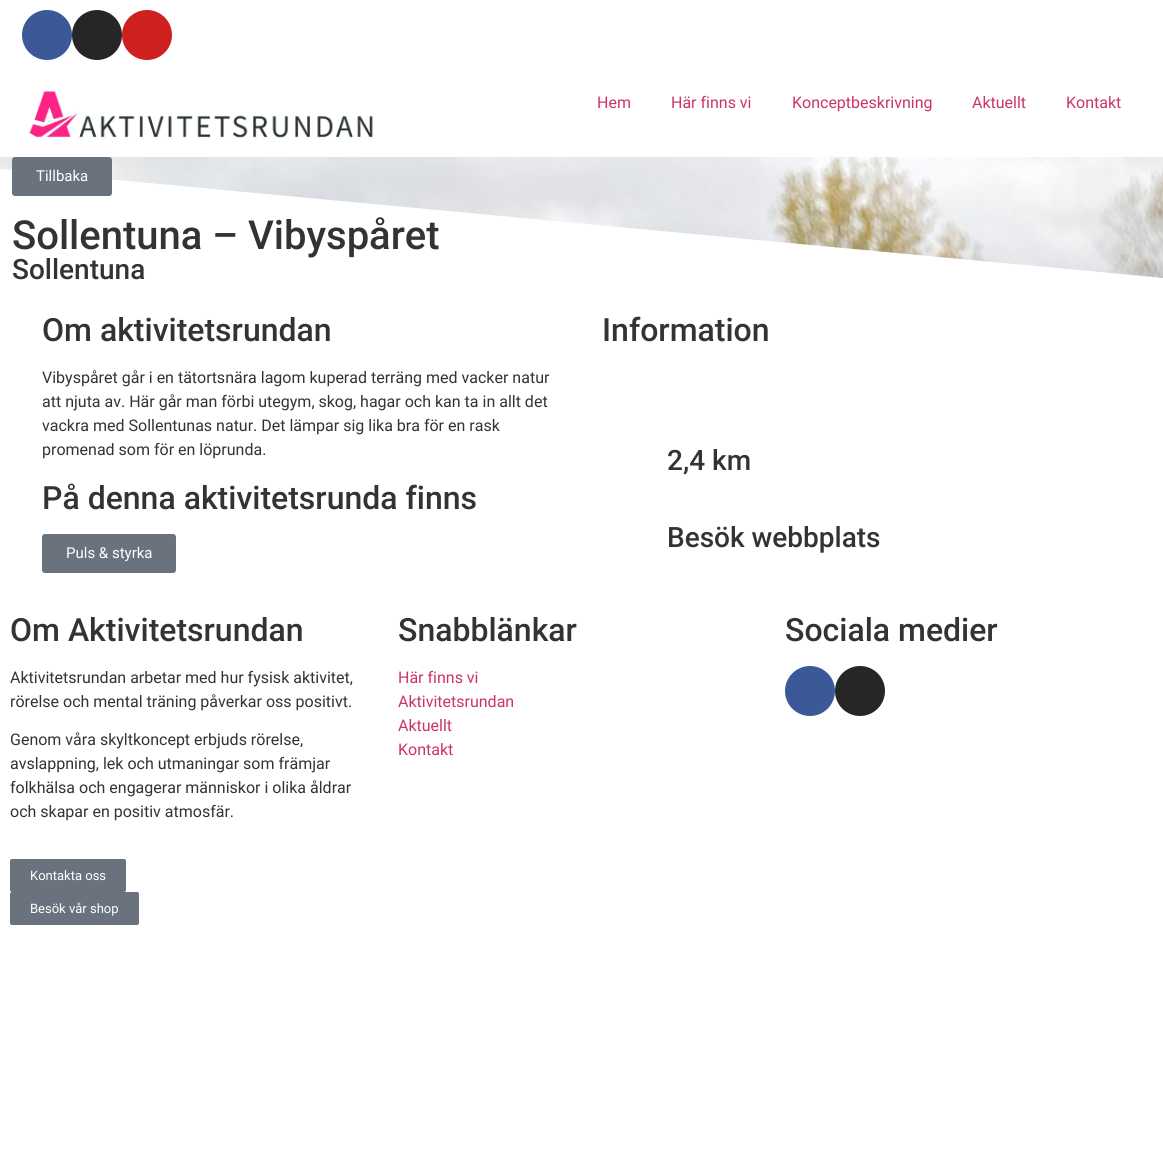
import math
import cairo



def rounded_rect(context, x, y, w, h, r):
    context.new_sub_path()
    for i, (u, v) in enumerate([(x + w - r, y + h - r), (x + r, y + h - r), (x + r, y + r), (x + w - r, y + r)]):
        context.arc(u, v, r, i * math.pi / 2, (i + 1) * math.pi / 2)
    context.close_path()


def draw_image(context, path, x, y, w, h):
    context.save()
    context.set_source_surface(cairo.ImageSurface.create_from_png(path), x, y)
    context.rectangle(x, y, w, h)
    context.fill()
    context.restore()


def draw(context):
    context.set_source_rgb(1, 1, 1)
    context.paint()
    context.set_source_rgb(59 / 255, 89 / 255, 152 / 255)
    context.arc(47, 35, 25, 0, 2 * math.pi)
    context.fill()
    context.set_source_rgb(38 / 255, 38 / 255, 38 / 255)
    context.arc(97, 35, 25, 0, 2 * math.pi)
    context.fill()
    context.set_source_rgb(205 / 255, 32 / 255, 31 / 255)
    context.arc(147, 35, 25, 0, 2 * math.pi)
    context.fill()
    draw_image(context, "images/1.png", 29, 91, 344, 48)
    draw_image(context, "images/2.png", 0, 157, 1163, 121)
    context.set_source_rgb(1, 1, 1)
    context.new_path()
    context.move_to(1163, 278)
    context.line_to(1163, 285)
    context.line_to(-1, 285)
    context.line_to(-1, 169)
    context.close_path()
    context.fill()
    context.set_source_rgb(105 / 255, 114 / 255, 125 / 255)
    rounded_rect(context, 12, 157, 100, 39, 3)
    context.fill()
    rounded_rect(context, 42, 534, 134, 39, 3)
    context.fill()
    rounded_rect(context, 10, 859, 116, 33, 2)
    context.fill()
    rounded_rect(context, 10, 892, 129, 33, 2)
    context.fill()
    context.set_source_rgb(59 / 255, 89 / 255, 152 / 255)
    context.arc(810, 691, 25, 0, 2 * math.pi)
    context.fill()
    context.set_source_rgb(38 / 255, 38 / 255, 38 / 255)
    context.arc(860, 691, 25, 0, 2 * math.pi)
    context.fill()
    context.select_font_face("Roboto")
    context.set_font_size(16)
    context.set_source_rgb(204 / 255, 51 / 255, 102 / 255)
    context.move_to(597, 108)
    context.show_text("Hem")
    context.move_to(671, 108)
    context.show_text("Här finns vi")
    context.move_to(792, 108)
    context.show_text("Konceptbeskrivning")
    context.move_to(972, 108)
    context.show_text("Aktuellt")
    context.move_to(1066, 108)
    context.show_text("Kontakt")
    context.set_font_size(15)
    context.set_source_rgb(1, 1, 1)
    context.move_to(36, 181)
    context.show_text("Tillbaka")
    context.select_font_face("Roboto Medium")
    context.set_font_size(40)
    context.set_source_rgb(51 / 255, 51 / 255, 51 / 255)
    context.move_to(12, 249)
    context.show_text("Sollentuna – Vibyspåret")
    context.set_font_size(28)
    context.move_to(12, 279)
    context.show_text("Sollentuna")
    context.set_font_size(32)
    context.move_to(42, 341)
    context.show_text("Om aktivitetsrundan")
    context.select_font_face("Roboto")
    context.set_font_size(16)
    context.move_to(42, 383)
    context.show_text("Vibyspåret går i en tätortsnära lagom kuperad terräng med vacker natur")
    context.move_to(42, 407)
    context.show_text("att njuta av. Här går man förbi utegym, skog, hagar och kan ta in allt det")
    context.move_to(42, 431)
    context.show_text("vackra med Sollentunas natur. Det lämpar sig lika bra för en rask")
    context.move_to(42, 455)
    context.show_text("promenad som för en löprunda.")
    context.select_font_face("Roboto Medium")
    context.set_font_size(32)
    context.move_to(42, 509)
    context.show_text("På denna aktivitetsrunda finns")
    context.select_font_face("Roboto")
    context.set_font_size(15)
    context.set_source_rgb(1, 1, 1)
    context.move_to(66, 558)
    context.show_text("Puls & styrka")
    context.select_font_face("Roboto Medium")
    context.set_font_size(32)
    context.set_source_rgb(51 / 255, 51 / 255, 51 / 255)
    context.move_to(602, 341)
    context.show_text("Information")
    context.set_font_size(28)
    context.move_to(667, 470)
    context.show_text("2,4 km")
    context.move_to(667, 547)
    context.show_text("Besök webbplats")
    context.set_font_size(32)
    context.move_to(10, 641)
    context.show_text("Om Aktivitetsrundan")
    context.select_font_face("Roboto")
    context.set_font_size(16)
    context.move_to(10, 683)
    context.show_text("Aktivitetsrundan arbetar med hur fysisk aktivitet,")
    context.move_to(10, 707)
    context.show_text("rörelse och mental träning påverkar oss positivt.")
    context.move_to(10, 745)
    context.show_text("Genom våra skyltkoncept erbjuds rörelse,")
    context.move_to(10, 769)
    context.show_text("avslappning, lek och utmaningar som främjar")
    context.move_to(10, 793)
    context.show_text("folkhälsa och engagerar människor i olika åldrar")
    context.move_to(10, 817)
    context.show_text("och skapar en positiv atmosfär.")
    context.set_font_size(13)
    context.set_source_rgb(1, 1, 1)
    context.move_to(30, 880)
    context.show_text("Kontakta oss")
    context.move_to(30, 913)
    context.show_text("Besök vår shop")
    context.select_font_face("Roboto Medium")
    context.set_font_size(32)
    context.set_source_rgb(51 / 255, 51 / 255, 51 / 255)
    context.move_to(398, 641)
    context.show_text("Snabblänkar")
    context.select_font_face("Roboto")
    context.set_font_size(16)
    context.set_source_rgb(204 / 255, 51 / 255, 102 / 255)
    context.move_to(398, 683)
    context.show_text("Här finns vi")
    context.move_to(398, 707)
    context.show_text("Aktivitetsrundan")
    context.move_to(398, 731)
    context.show_text("Aktuellt")
    context.move_to(398, 755)
    context.show_text("Kontakt")
    context.select_font_face("Roboto Medium")
    context.set_font_size(32)
    context.set_source_rgb(51 / 255, 51 / 255, 51 / 255)
    context.move_to(785, 641)
    context.show_text("Sociala medier")


surface = cairo.ImageSurface(cairo.Format.RGB24, 1163, 1173)
context = cairo.Context(surface)
options = cairo.FontOptions()
options.set_hint_metrics(cairo.HintMetrics.OFF)
options.set_hint_style(cairo.HintStyle.NONE)
context.set_font_options(options)
context.set_miter_limit(4)
draw(context)
surface.write_to_png("out.png")
